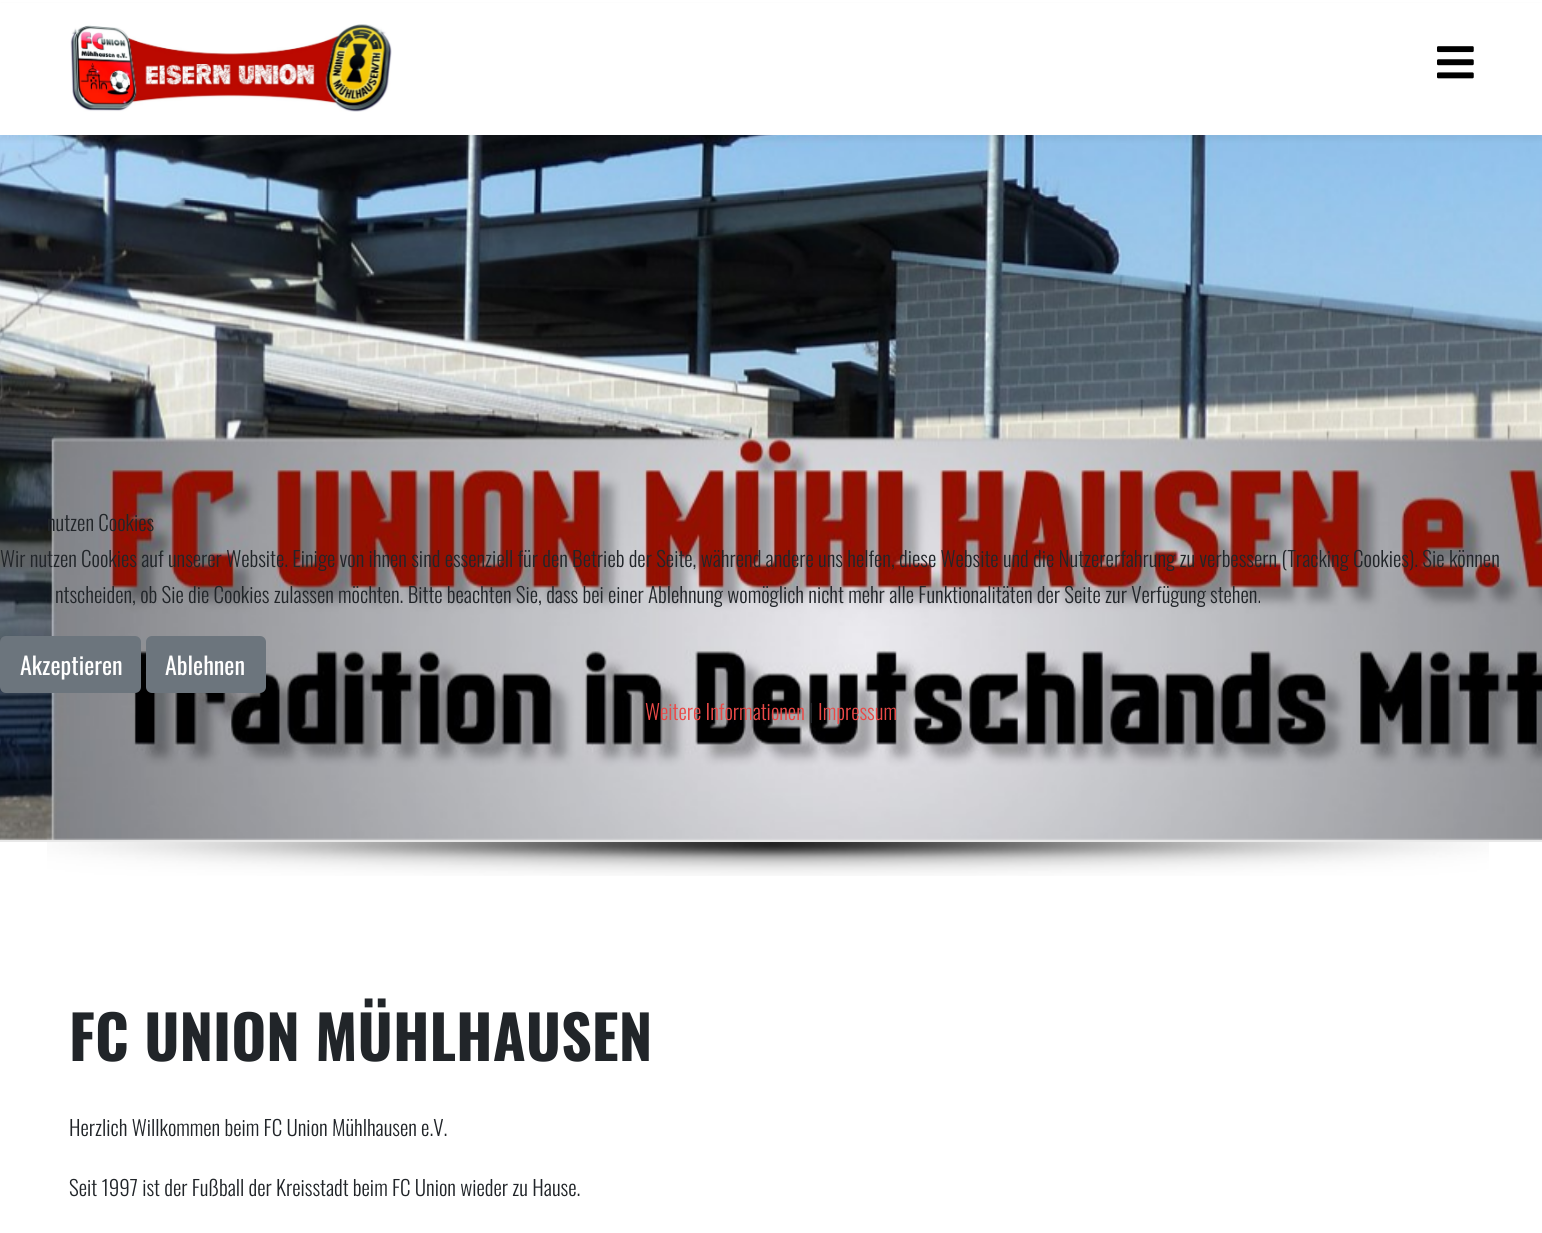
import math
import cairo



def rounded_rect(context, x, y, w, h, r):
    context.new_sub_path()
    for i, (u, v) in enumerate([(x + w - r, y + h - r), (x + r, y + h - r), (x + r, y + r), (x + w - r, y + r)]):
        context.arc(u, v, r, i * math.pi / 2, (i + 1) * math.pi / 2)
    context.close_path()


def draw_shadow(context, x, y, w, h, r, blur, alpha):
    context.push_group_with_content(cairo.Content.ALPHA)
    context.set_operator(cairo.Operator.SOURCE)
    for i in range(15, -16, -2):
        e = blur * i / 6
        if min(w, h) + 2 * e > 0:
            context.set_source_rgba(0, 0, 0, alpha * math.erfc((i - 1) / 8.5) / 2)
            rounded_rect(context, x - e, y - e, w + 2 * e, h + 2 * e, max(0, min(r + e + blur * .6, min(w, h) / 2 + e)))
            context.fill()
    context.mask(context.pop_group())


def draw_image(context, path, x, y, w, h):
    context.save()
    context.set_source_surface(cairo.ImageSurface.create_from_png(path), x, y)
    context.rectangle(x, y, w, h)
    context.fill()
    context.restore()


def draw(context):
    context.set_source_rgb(1, 1, 1)
    context.paint()
    context.set_source_rgb(233 / 255, 233 / 255, 233 / 255)
    context.rectangle(0, 838, 1542, 2)
    context.fill()
    draw_image(context, "images/3.png", 0, 135, 1542, 705)
    context.set_source_rgb(108 / 255, 117 / 255, 125 / 255)
    rounded_rect(context, 1, 637, 139, 55, 5)
    context.fill_preserve()
    context.stroke()
    rounded_rect(context, 147, 637, 118, 55, 5)
    context.fill_preserve()
    context.stroke()
    context.set_source_rgb(0, 0, 0)
    draw_shadow(context, 0, 5, 1542, 135, 0, 2, 0.05)
    context.set_source_rgb(1, 1, 1)
    context.rectangle(0, 3, 1542, 132)
    context.fill()
    draw_image(context, "images/1.png", 70, 24, 322, 88)
    draw_image(context, "images/2.png", 1437, 46, 37, 33)
    context.set_source_rgb(232 / 255, 232 / 255, 232 / 255)
    context.rectangle(0, 840, 1542, 2)
    context.fill()
    draw_image(context, "images/4.png", 47, 842, 1442, 34)
    context.select_font_face("Oswald Light")
    context.set_font_size(21)
    context.set_source_rgb(33 / 255, 37 / 255, 41 / 255)
    context.move_to(47, 531)
    context.show_text("nutzen Cookies")
    context.move_to(0, 567)
    context.show_text("Wir nutzen Cookies auf unserer Website. Einige von ihnen sind essenziell für den Betrieb der Seite, während andere uns helfen, diese Website und die Nutzererfahrung zu verbessern (Tracking Cookies). Sie können")
    context.move_to(55, 603)
    context.show_text("ntscheiden, ob Sie die Cookies zulassen möchten. Bitte beachten Sie, dass bei einer Ablehnung womöglich nicht mehr alle Funktionalitäten der Seite zur Verfügung stehen.")
    context.select_font_face("Oswald")
    context.set_font_size(24)
    context.set_source_rgb(1, 1, 1)
    context.move_to(20, 675)
    context.show_text("Akzeptieren")
    context.move_to(165, 675)
    context.show_text("Ablehnen")
    context.select_font_face("Oswald Light")
    context.set_font_size(21)
    context.set_source_rgb(235 / 255, 73 / 255, 71 / 255)
    context.move_to(645, 720)
    context.show_text("Weitere Informationen")
    context.set_source_rgb(33 / 255, 37 / 255, 41 / 255)
    context.move_to(809, 720)
    context.show_text("|")
    context.set_source_rgb(235 / 255, 73 / 255, 71 / 255)
    context.move_to(818, 720)
    context.show_text("Impressum")
    context.select_font_face("Oswald", cairo.FontSlant.NORMAL, cairo.FontWeight.BOLD)
    context.set_font_size(60)
    context.set_source_rgb(33 / 255, 37 / 255, 41 / 255)
    context.move_to(69, 1061)
    context.show_text("FC UNION MÜHLHAUSEN")
    context.select_font_face("Oswald Light")
    context.set_font_size(21)
    context.move_to(69, 1136)
    context.show_text("Herzlich Willkommen beim FC Union Mühlhausen e.V.")
    context.move_to(69, 1196)
    context.show_text("Seit 1997 ist der Fußball der Kreisstadt beim FC Union wieder zu Hause.")


surface = cairo.ImageSurface(cairo.Format.RGB24, 1542, 1233)
context = cairo.Context(surface)
options = cairo.FontOptions()
options.set_hint_metrics(cairo.HintMetrics.OFF)
options.set_hint_style(cairo.HintStyle.NONE)
context.set_font_options(options)
context.set_miter_limit(4)
draw(context)
surface.write_to_png("out.png")
